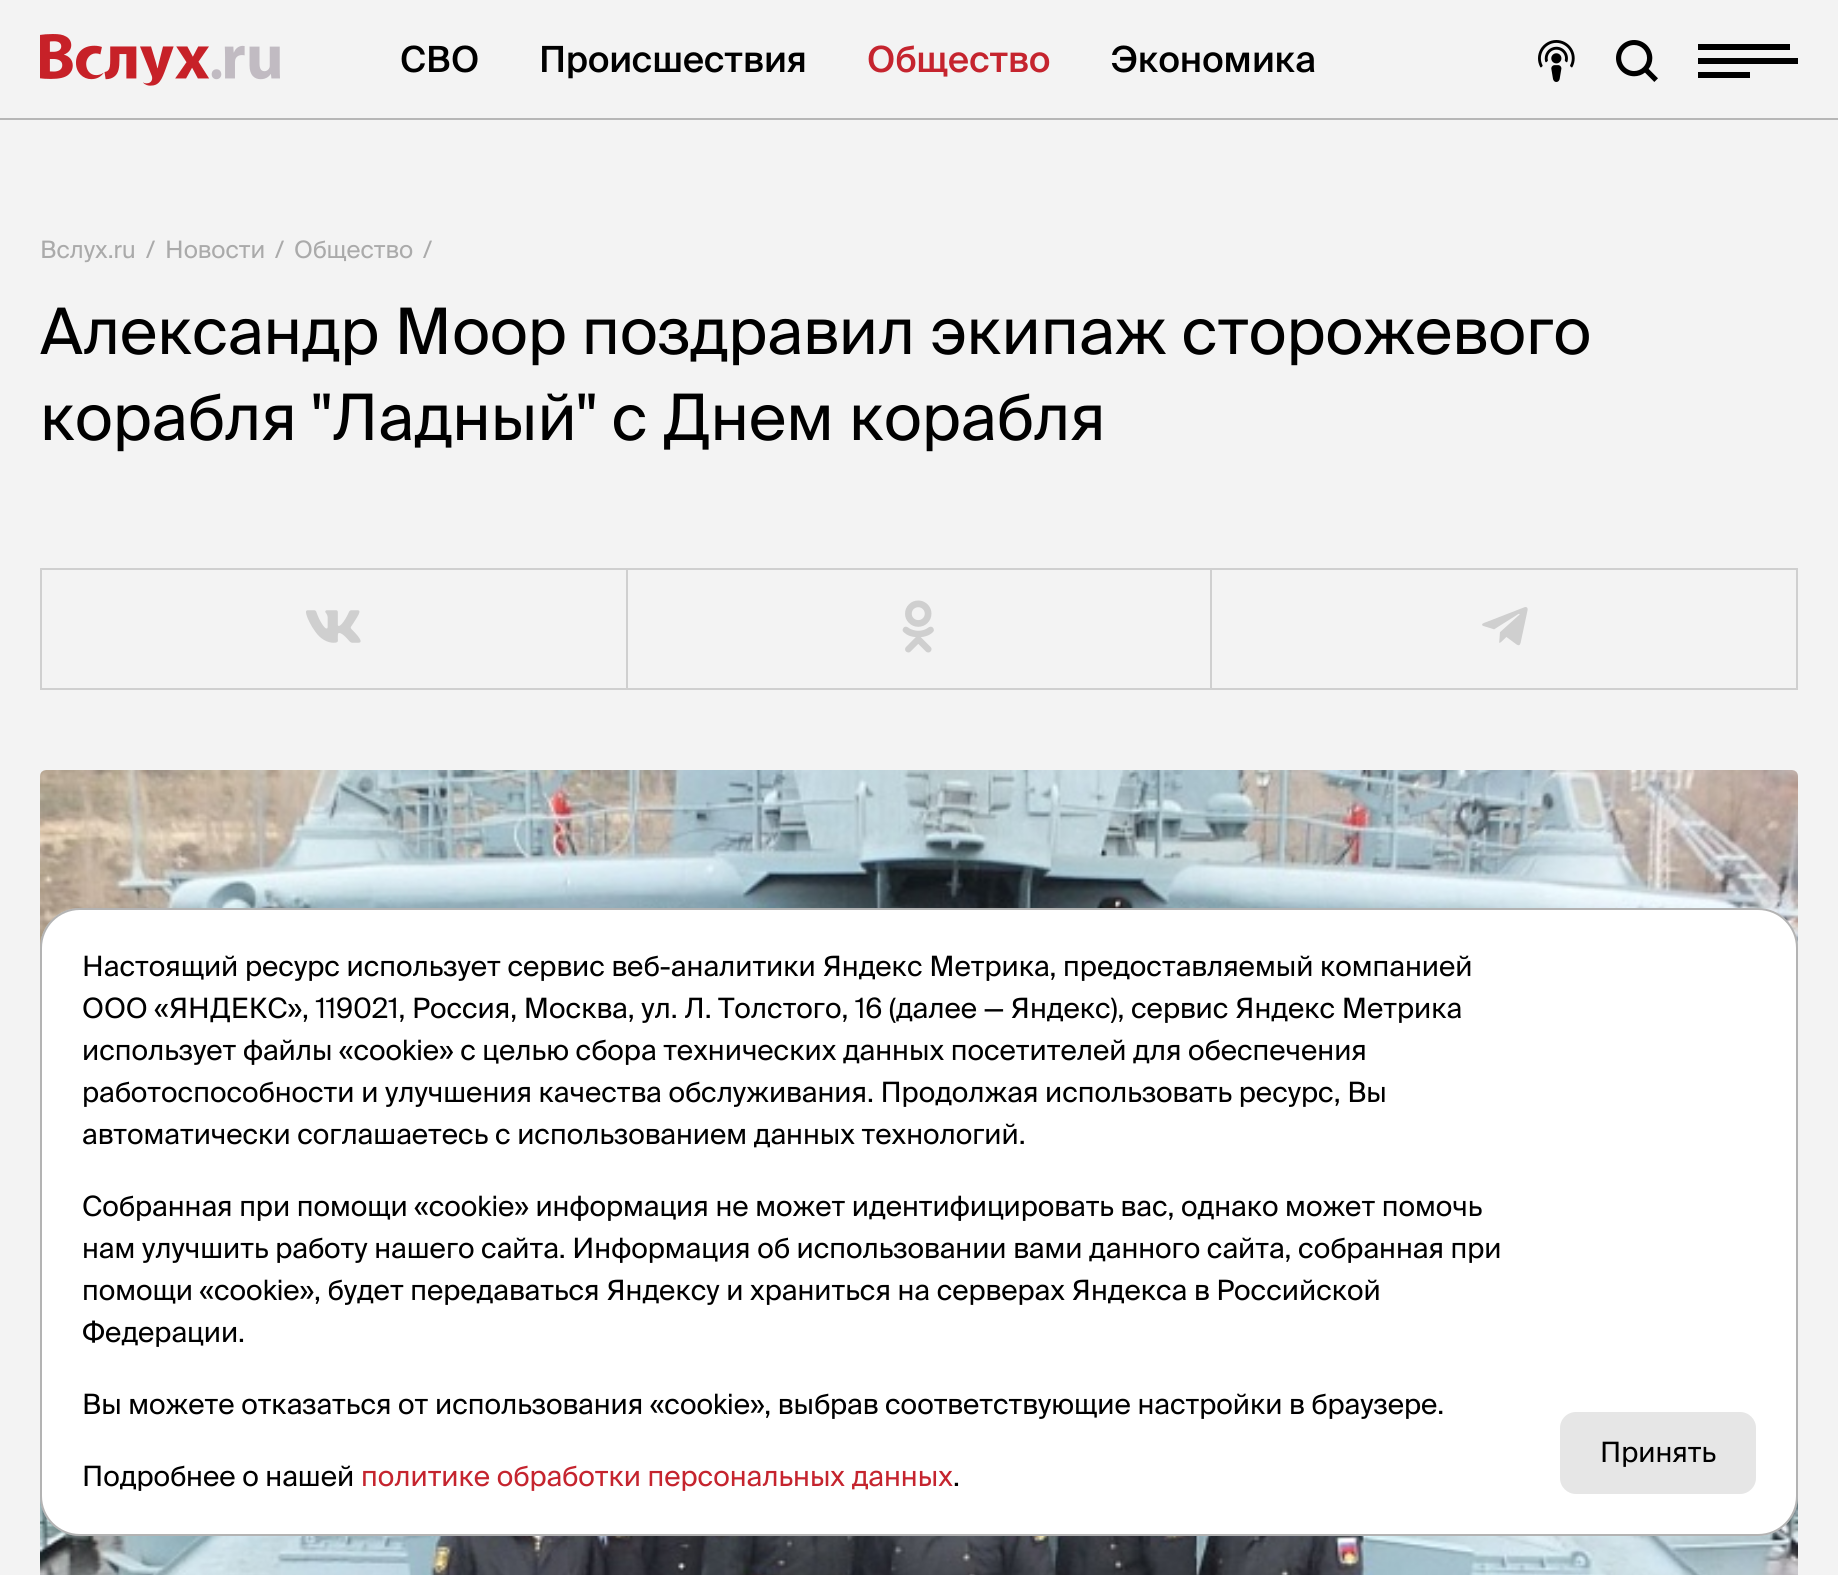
import math
import cairo



def rounded_rect(context, x, y, w, h, r):
    context.new_sub_path()
    for i, (u, v) in enumerate([(x + w - r, y + h - r), (x + r, y + h - r), (x + r, y + r), (x + w - r, y + r)]):
        context.arc(u, v, r, i * math.pi / 2, (i + 1) * math.pi / 2)
    context.close_path()


def draw_image(context, path, x, y, w, h):
    context.save()
    context.set_source_surface(cairo.ImageSurface.create_from_png(path), x, y)
    context.rectangle(x, y, w, h)
    context.fill()
    context.restore()


def draw(context):
    context.set_source_rgb(243 / 255, 243 / 255, 243 / 255)
    context.paint()
    draw_image(context, "images/1.png", 40, 34, 240, 52)
    draw_image(context, "images/2.png", 1538, 40, 37, 42)
    draw_image(context, "images/3.png", 1616, 40, 42, 42)
    context.set_source_rgb(0, 0, 0)
    context.rectangle(1698, 58, 100, 6)
    context.fill()
    context.rectangle(1698, 44, 92, 6)
    context.fill()
    context.rectangle(1698, 72, 52, 6)
    context.fill()
    context.set_source_rgb(182 / 255, 182 / 255, 182 / 255)
    context.rectangle(0, 118, 1838, 2)
    context.fill()
    context.set_source_rgb(207 / 255, 207 / 255, 207 / 255)
    context.new_path()
    context.move_to(40, 568)
    context.line_to(1798, 568)
    context.line_to(1798, 570)
    context.line_to(42, 570)
    context.close_path()
    context.fill()
    context.set_source_rgba(0, 0, 0, 0.15)
    context.new_path()
    context.move_to(40, 690)
    context.line_to(40, 568)
    context.line_to(42, 570)
    context.line_to(42, 690)
    context.close_path()
    context.fill()
    context.set_source_rgb(207 / 255, 207 / 255, 207 / 255)
    context.new_path()
    context.move_to(628, 570)
    context.line_to(628, 690)
    context.line_to(626, 688)
    context.line_to(626, 570)
    context.close_path()
    context.fill()
    context.set_source_rgba(0, 0, 0, 0.15)
    context.new_path()
    context.move_to(628, 690)
    context.line_to(42, 690)
    context.line_to(42, 688)
    context.line_to(626, 688)
    context.close_path()
    context.fill()
    draw_image(context, "images/4.png", 306, 610, 55, 33)
    context.set_source_rgb(207 / 255, 207 / 255, 207 / 255)
    context.new_path()
    context.move_to(1212, 570)
    context.line_to(1212, 690)
    context.line_to(1210, 688)
    context.line_to(1210, 570)
    context.close_path()
    context.fill()
    context.set_source_rgba(0, 0, 0, 0.15)
    context.new_path()
    context.move_to(1212, 690)
    context.line_to(628, 690)
    context.line_to(628, 688)
    context.line_to(1210, 688)
    context.close_path()
    context.fill()
    draw_image(context, "images/5.png", 902, 600, 32, 53)
    context.set_source_rgb(207 / 255, 207 / 255, 207 / 255)
    context.new_path()
    context.move_to(1798, 570)
    context.line_to(1798, 690)
    context.line_to(1796, 688)
    context.line_to(1796, 570)
    context.close_path()
    context.fill()
    context.set_source_rgba(0, 0, 0, 0.15)
    context.new_path()
    context.move_to(1798, 690)
    context.line_to(1212, 690)
    context.line_to(1212, 688)
    context.line_to(1796, 688)
    context.close_path()
    context.fill()
    draw_image(context, "images/6.png", 1482, 607, 46, 39)
    draw_image(context, "images/7.png", 40, 770, 1758, 805)
    context.set_source_rgb(1, 1, 1)
    rounded_rect(context, 40, 908, 1758, 628, 40)
    context.fill()
    rounded_rect(context, 41, 909, 1756, 626, 39)
    context.set_source_rgba(0, 0, 0, 0.3)
    context.stroke()
    context.set_source_rgb(230 / 255, 230 / 255, 230 / 255)
    rounded_rect(context, 1560, 1412, 196, 82, 16)
    context.fill()
    context.select_font_face("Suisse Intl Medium")
    context.set_font_size(36)
    context.set_source_rgb(0, 0, 0)
    context.move_to(400, 72)
    context.show_text("СВО")
    context.move_to(539, 72)
    context.show_text("Происшествия")
    context.set_source_rgb(197 / 255, 36 / 255, 46 / 255)
    context.move_to(867, 72)
    context.show_text("Общество")
    context.set_source_rgb(0, 0, 0)
    context.move_to(1111, 72)
    context.show_text("Экономика")
    context.select_font_face("Suisse Intl")
    context.set_font_size(24)
    context.set_source_rgb(170 / 255, 170 / 255, 170 / 255)
    context.move_to(40, 258)
    context.show_text("Вслух.ru")
    context.move_to(146, 258)
    context.show_text("/")
    context.move_to(165, 258)
    context.show_text("Новости")
    context.move_to(275, 258)
    context.show_text("/")
    context.move_to(294, 258)
    context.show_text("Общество")
    context.move_to(423, 258)
    context.show_text("/")
    context.set_font_size(64)
    context.set_source_rgb(0, 0, 0)
    context.move_to(40, 354)
    context.show_text("Александр Моор поздравил экипаж сторожевого")
    context.move_to(40, 440)
    context.show_text("корабля \"Ладный\" с Днем корабля")
    context.set_font_size(28)
    context.move_to(82, 976)
    context.show_text("Настоящий ресурс использует сервис веб-аналитики Яндекс Метрика, предоставляемый компанией")
    context.move_to(82, 1018)
    context.show_text("ООО «ЯНДЕКС», 119021, Россия, Москва, ул. Л. Толстого, 16 (далее — Яндекс), сервис Яндекс Метрика")
    context.move_to(82, 1060)
    context.show_text("использует файлы «cookie» с целью сбора технических данных посетителей для обеспечения")
    context.move_to(82, 1102)
    context.show_text("работоспособности и улучшения качества обслуживания. Продолжая использовать ресурс, Вы")
    context.move_to(82, 1144)
    context.show_text("автоматически соглашаетесь с использованием данных технологий.")
    context.move_to(82, 1216)
    context.show_text("Собранная при помощи «cookie» информация не может идентифицировать вас, однако может помочь")
    context.move_to(82, 1258)
    context.show_text("нам улучшить работу нашего сайта. Информация об использовании вами данного сайта, собранная при")
    context.move_to(82, 1300)
    context.show_text("помощи «cookie», будет передаваться Яндексу и храниться на серверах Яндекса в Российской")
    context.move_to(82, 1342)
    context.show_text("Федерации.")
    context.move_to(82, 1414)
    context.show_text("Вы можете отказаться от использования «cookie», выбрав соответствующие настройки в браузере.")
    context.move_to(1600, 1462)
    context.show_text("Принять")
    context.move_to(82, 1486)
    context.show_text("Подробнее о нашей")
    context.set_source_rgb(197 / 255, 36 / 255, 46 / 255)
    context.move_to(361, 1486)
    context.show_text("политике обработки персональных данных")
    context.set_source_rgb(0, 0, 0)
    context.move_to(953, 1486)
    context.show_text(".")


surface = cairo.ImageSurface(cairo.Format.RGB24, 1838, 1575)
context = cairo.Context(surface)
options = cairo.FontOptions()
options.set_hint_metrics(cairo.HintMetrics.OFF)
options.set_hint_style(cairo.HintStyle.NONE)
context.set_font_options(options)
context.set_miter_limit(4)
draw(context)
surface.write_to_png("out.png")
